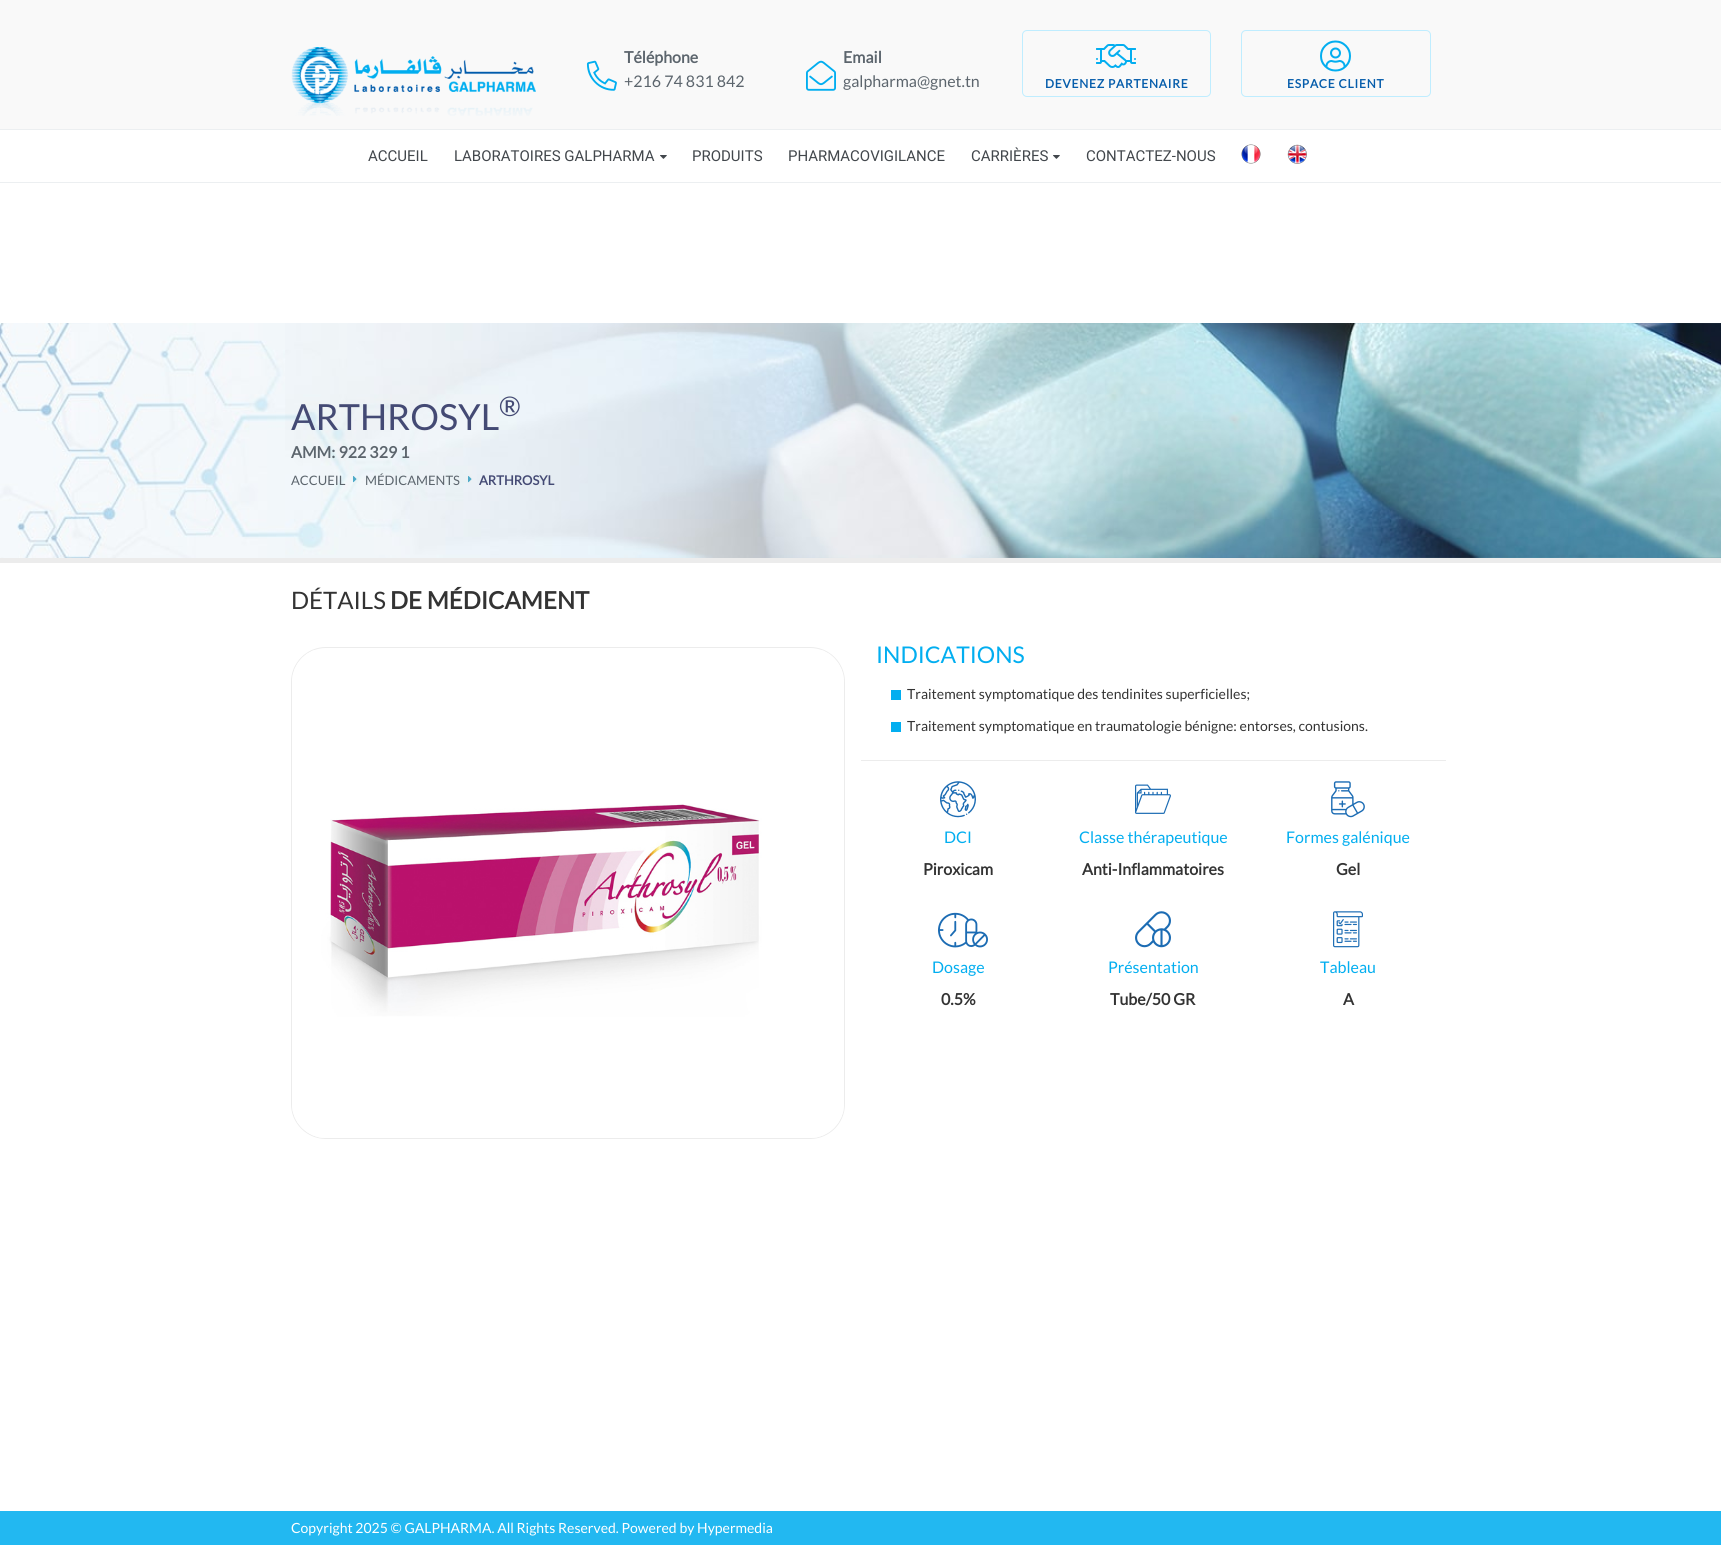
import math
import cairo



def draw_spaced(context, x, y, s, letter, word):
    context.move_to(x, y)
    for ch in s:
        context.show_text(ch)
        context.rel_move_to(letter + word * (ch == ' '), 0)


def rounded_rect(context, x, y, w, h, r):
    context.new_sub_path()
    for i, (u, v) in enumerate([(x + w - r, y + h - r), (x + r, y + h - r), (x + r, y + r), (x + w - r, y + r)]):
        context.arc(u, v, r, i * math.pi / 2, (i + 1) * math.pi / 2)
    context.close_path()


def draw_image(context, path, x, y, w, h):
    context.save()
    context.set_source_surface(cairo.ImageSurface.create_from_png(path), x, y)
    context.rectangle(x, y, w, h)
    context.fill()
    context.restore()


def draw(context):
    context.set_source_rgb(1, 1, 1)
    context.paint()
    context.set_source_rgb(249 / 255, 249 / 255, 249 / 255)
    context.rectangle(0, 0, 1721, 129)
    context.fill()
    draw_image(context, "images/1.png", 291, 47, 245, 69)
    draw_image(context, "images/2.png", 586, 60, 31, 31)
    draw_image(context, "images/3.png", 806, 60, 30, 31)
    rounded_rect(context, 1022.5, 30.5, 188, 66, 4.5)
    context.set_source_rgb(191 / 255, 237 / 255, 1)
    context.set_line_width(1)
    context.stroke()
    draw_image(context, "images/4.png", 1096, 44, 40, 24)
    rounded_rect(context, 1241.5, 30.5, 189, 66, 4.5)
    context.stroke()
    draw_image(context, "images/5.png", 1320, 40, 31, 32)
    context.set_source_rgb(236 / 255, 239 / 255, 241 / 255)
    context.rectangle(0, 129, 1721, 1)
    context.fill()
    context.rectangle(0, 182, 1721, 1)
    context.fill()
    draw_image(context, "images/6.png", 660, 155, 7, 4)
    draw_image(context, "images/6.png", 1053, 155, 7, 4)
    draw_image(context, "images/7.png", 1241, 144, 20, 20)
    draw_image(context, "images/8.png", 1287, 144, 20, 20)
    draw_image(context, "images/9.png", 0, 323, 1721, 235)
    context.set_source_rgb(236 / 255, 236 / 255, 236 / 255)
    context.rectangle(0, 558, 1721, 5)
    context.fill()
    draw_image(context, "images/10.png", 353, 476, 4, 7)
    draw_image(context, "images/11.png", 468, 476, 4, 7)
    rounded_rect(context, 291.5, 647.5, 553, 491, 34.5)
    context.stroke()
    draw_image(context, "images/12.png", 292, 650, 552, 488)
    context.set_source_rgb(2 / 255, 174 / 255, 240 / 255)
    context.rectangle(891, 690, 10, 10)
    context.fill()
    context.rectangle(891, 722, 10, 10)
    context.fill()
    context.set_source_rgb(236 / 255, 236 / 255, 236 / 255)
    context.rectangle(861, 760, 585, 1)
    context.fill()
    draw_image(context, "images/13.png", 940, 781, 36, 37)
    draw_image(context, "images/14.png", 1135, 784, 36, 30)
    draw_image(context, "images/15.png", 1331, 781, 34, 37)
    draw_image(context, "images/16.png", 938, 912, 50, 36)
    draw_image(context, "images/17.png", 1135, 911, 36, 37)
    draw_image(context, "images/18.png", 1333, 911, 30, 37)
    context.set_source_rgb(34 / 255, 184 / 255, 241 / 255)
    context.rectangle(0, 1511, 1721, 34)
    context.fill()
    context.select_font_face("Lato", cairo.FontSlant.NORMAL, cairo.FontWeight.BOLD)
    context.set_font_size(16)
    context.set_source_rgb(92 / 255, 101 / 255, 109 / 255)
    context.move_to(624, 63)
    context.show_text("Téléphone")
    context.select_font_face("Lato")
    context.move_to(624, 87)
    context.show_text("+216 74 831 842")
    context.select_font_face("Lato", cairo.FontSlant.NORMAL, cairo.FontWeight.BOLD)
    context.move_to(843, 63)
    context.show_text("Email")
    context.select_font_face("Lato")
    context.move_to(843, 87)
    context.show_text("galpharma@gnet.tn")
    context.select_font_face("Lato", cairo.FontSlant.NORMAL, cairo.FontWeight.BOLD)
    context.set_font_size(12)
    context.set_source_rgb(6 / 255, 93 / 255, 171 / 255)
    draw_spaced(context, 1045, 88, "DEVENEZ PARTENAIRE", 0.75, 0)
    draw_spaced(context, 1287, 88, "ESPACE CLIENT", 0.75, 0)
    context.select_font_face("Roboto")
    context.set_font_size(15)
    context.set_source_rgb(66 / 255, 71 / 255, 76 / 255)
    context.move_to(368, 161)
    context.show_text("ACCUEIL")
    context.move_to(454, 161)
    context.show_text("LABORATOIRES GALPHARMA")
    context.move_to(692, 161)
    context.show_text("PRODUITS")
    context.move_to(788, 161)
    context.show_text("PHARMACOVIGILANCE")
    context.move_to(971, 161)
    context.show_text("CARRIÈRES")
    context.move_to(1086, 161)
    context.show_text("CONTACTEZ-NOUS")
    context.select_font_face("Lato")
    context.set_font_size(36)
    context.set_source_rgb(68 / 255, 74 / 255, 116 / 255)
    context.move_to(291, 430)
    context.show_text("ARTHROSYL")
    context.set_font_size(27)
    context.move_to(499, 416)
    context.show_text("®")
    context.select_font_face("Lato", cairo.FontSlant.NORMAL, cairo.FontWeight.BOLD)
    context.set_font_size(16)
    context.set_source_rgb(92 / 255, 101 / 255, 109 / 255)
    context.move_to(291, 458)
    context.show_text("AMM: 922 329 1")
    context.select_font_face("Lato")
    context.set_font_size(13)
    context.move_to(291, 485)
    context.show_text("ACCUEIL")
    context.move_to(365, 485)
    context.show_text("MÉDICAMENTS")
    context.select_font_face("Lato", cairo.FontSlant.NORMAL, cairo.FontWeight.BOLD)
    context.set_source_rgb(68 / 255, 74 / 255, 116 / 255)
    context.move_to(479, 485)
    context.show_text("ARTHROSYL")
    context.select_font_face("Lato")
    context.set_font_size(24)
    context.set_source_rgb(51 / 255, 51 / 255, 51 / 255)
    context.move_to(291, 609)
    context.show_text("DÉTAILS")
    context.select_font_face("Lato", cairo.FontSlant.NORMAL, cairo.FontWeight.BOLD)
    context.move_to(390, 609)
    context.show_text("DE MÉDICAMENT")
    context.select_font_face("Lato")
    context.set_font_size(23)
    context.set_source_rgb(2 / 255, 174 / 255, 240 / 255)
    context.move_to(876, 663)
    context.show_text("INDICATIONS")
    context.set_font_size(14)
    context.set_source_rgb(51 / 255, 51 / 255, 51 / 255)
    context.move_to(907, 699)
    context.show_text("Traitement symptomatique des tendinites superficielles;")
    context.move_to(907, 731)
    context.show_text("Traitement symptomatique en traumatologie bénigne: entorses, contusions.")
    context.set_font_size(16)
    context.set_source_rgb(2 / 255, 174 / 255, 240 / 255)
    context.move_to(944, 843)
    context.show_text("DCI")
    context.select_font_face("Lato", cairo.FontSlant.NORMAL, cairo.FontWeight.BOLD)
    context.set_source_rgb(51 / 255, 51 / 255, 51 / 255)
    context.move_to(923, 875)
    context.show_text("Piroxicam")
    context.select_font_face("Lato")
    context.set_source_rgb(2 / 255, 174 / 255, 240 / 255)
    context.move_to(1079, 843)
    context.show_text("Classe thérapeutique")
    context.select_font_face("Lato", cairo.FontSlant.NORMAL, cairo.FontWeight.BOLD)
    context.set_source_rgb(51 / 255, 51 / 255, 51 / 255)
    context.move_to(1082, 875)
    context.show_text("Anti-Inflammatoires")
    context.select_font_face("Lato")
    context.set_source_rgb(2 / 255, 174 / 255, 240 / 255)
    context.move_to(1286, 843)
    context.show_text("Formes galénique")
    context.select_font_face("Lato", cairo.FontSlant.NORMAL, cairo.FontWeight.BOLD)
    context.set_source_rgb(51 / 255, 51 / 255, 51 / 255)
    context.move_to(1336, 875)
    context.show_text("Gel")
    context.select_font_face("Lato")
    context.set_source_rgb(2 / 255, 174 / 255, 240 / 255)
    context.move_to(932, 973)
    context.show_text("Dosage")
    context.select_font_face("Lato", cairo.FontSlant.NORMAL, cairo.FontWeight.BOLD)
    context.set_source_rgb(51 / 255, 51 / 255, 51 / 255)
    context.move_to(941, 1005)
    context.show_text("0.5%")
    context.select_font_face("Lato")
    context.set_source_rgb(2 / 255, 174 / 255, 240 / 255)
    context.move_to(1108, 973)
    context.show_text("Présentation")
    context.select_font_face("Lato", cairo.FontSlant.NORMAL, cairo.FontWeight.BOLD)
    context.set_source_rgb(51 / 255, 51 / 255, 51 / 255)
    context.move_to(1110, 1005)
    context.show_text("Tube/50 GR")
    context.select_font_face("Lato")
    context.set_source_rgb(2 / 255, 174 / 255, 240 / 255)
    context.move_to(1320, 973)
    context.show_text("Tableau")
    context.select_font_face("Lato", cairo.FontSlant.NORMAL, cairo.FontWeight.BOLD)
    context.set_source_rgb(51 / 255, 51 / 255, 51 / 255)
    context.move_to(1343, 1005)
    context.show_text("A")
    context.select_font_face("Lato")
    context.set_font_size(14)
    context.set_source_rgb(1, 1, 1)
    context.move_to(291, 1533)
    context.show_text("Copyright 2025 © GALPHARMA. All Rights Reserved. Powered by Hypermedia")


surface = cairo.ImageSurface(cairo.Format.RGB24, 1721, 1559)
context = cairo.Context(surface)
options = cairo.FontOptions()
options.set_hint_metrics(cairo.HintMetrics.OFF)
options.set_hint_style(cairo.HintStyle.NONE)
context.set_font_options(options)
context.set_miter_limit(4)
draw(context)
surface.write_to_png("out.png")
